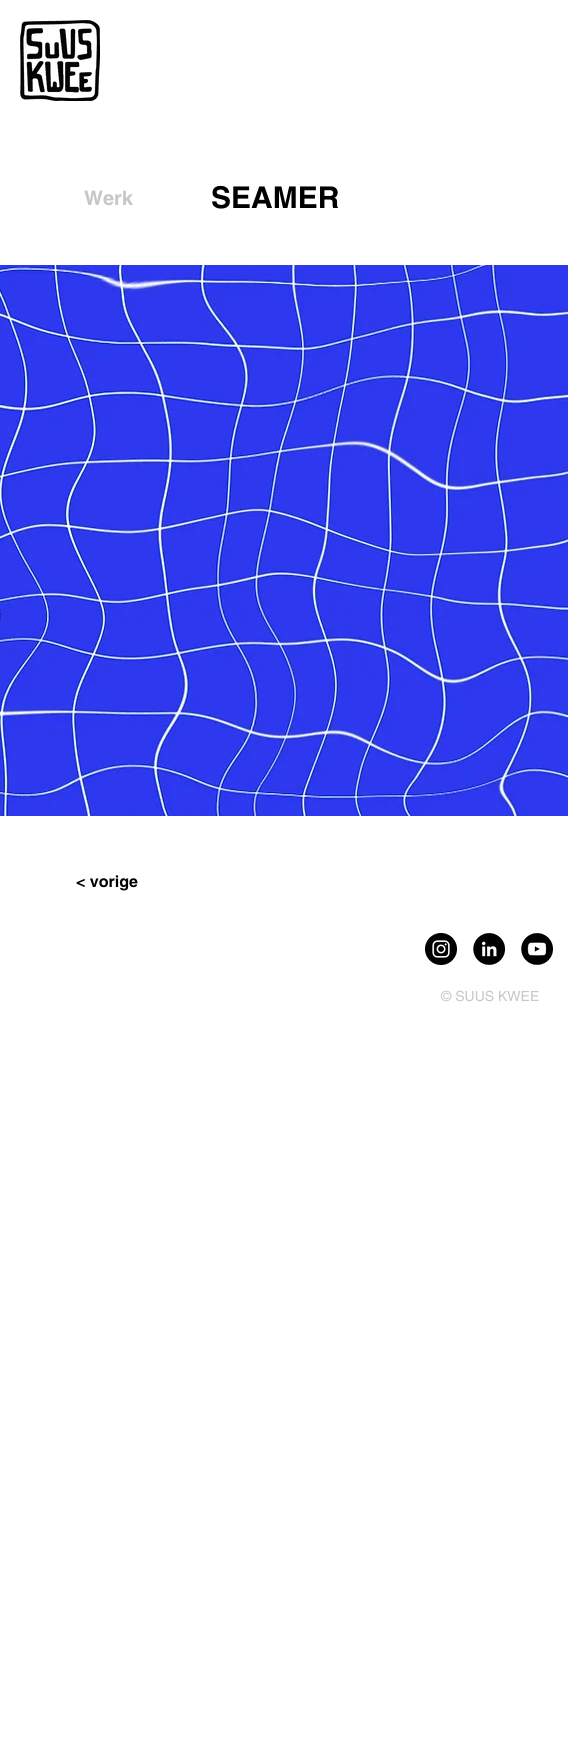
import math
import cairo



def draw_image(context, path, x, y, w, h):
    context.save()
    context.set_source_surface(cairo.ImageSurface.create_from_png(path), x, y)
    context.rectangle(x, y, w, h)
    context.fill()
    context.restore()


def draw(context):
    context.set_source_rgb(1, 1, 1)
    context.paint()
    draw_image(context, "images/1.png", 20, 20, 80, 81)
    draw_image(context, "images/2.png", 0, 265, 568, 551)
    draw_image(context, "images/3.png", 425, 933, 32, 32)
    draw_image(context, "images/4.png", 473, 933, 32, 32)
    draw_image(context, "images/5.png", 521, 933, 32, 32)
    context.select_font_face("helvetica", cairo.FontSlant.NORMAL, cairo.FontWeight.BOLD)
    context.set_font_size(20)
    context.set_source_rgb(199 / 255, 199 / 255, 199 / 255)
    context.move_to(84, 205)
    context.show_text("Werk")
    context.set_font_size(30)
    context.set_source_rgb(0, 0, 0)
    context.move_to(211, 208)
    context.show_text("SEAMER")
    context.set_font_size(16)
    context.move_to(76, 887)
    context.show_text("< vorige")
    context.select_font_face("helvetica")
    context.set_font_size(14)
    context.set_source_rgb(199 / 255, 199 / 255, 199 / 255)
    context.move_to(441, 1001)
    context.show_text("© SUUS KWEE")


surface = cairo.ImageSurface(cairo.Format.RGB24, 568, 1754)
context = cairo.Context(surface)
options = cairo.FontOptions()
options.set_hint_metrics(cairo.HintMetrics.OFF)
options.set_hint_style(cairo.HintStyle.NONE)
context.set_font_options(options)
context.set_miter_limit(4)
draw(context)
surface.write_to_png("out.png")
